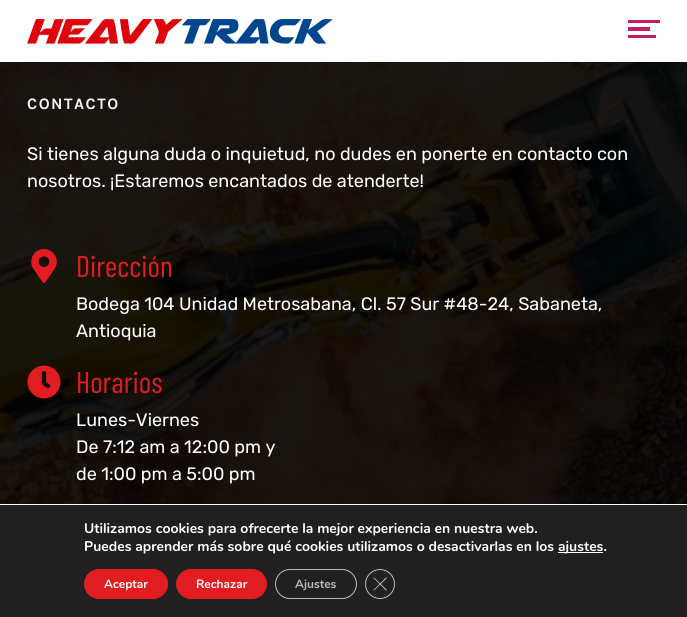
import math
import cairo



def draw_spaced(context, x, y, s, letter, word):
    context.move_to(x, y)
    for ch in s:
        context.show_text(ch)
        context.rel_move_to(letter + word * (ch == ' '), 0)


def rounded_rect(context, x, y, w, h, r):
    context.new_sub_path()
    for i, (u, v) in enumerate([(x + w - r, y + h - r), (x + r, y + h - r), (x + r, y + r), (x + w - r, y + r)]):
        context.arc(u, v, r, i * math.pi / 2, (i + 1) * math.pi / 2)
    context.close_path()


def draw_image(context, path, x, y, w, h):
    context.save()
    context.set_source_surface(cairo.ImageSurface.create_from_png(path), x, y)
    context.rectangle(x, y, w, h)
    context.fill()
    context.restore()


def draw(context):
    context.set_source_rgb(1, 1, 1)
    context.paint()
    draw_image(context, "images/1.png", 27, 19, 306, 25)
    context.set_source_rgb(196 / 255, 30 / 255, 104 / 255)
    context.rectangle(628, 20, 32, 3)
    context.fill()
    context.rectangle(628, 27, 22, 4)
    context.fill()
    context.rectangle(628, 35, 28, 3)
    context.fill()
    draw_image(context, "images/2.png", 0, 62, 687, 442)
    draw_image(context, "images/3.png", 31, 249, 26, 34)
    draw_image(context, "images/4.png", 27, 365, 34, 34)
    context.set_source_rgb(32 / 255, 32 / 255, 32 / 255)
    context.rectangle(0, 505, 687, 112)
    context.fill()
    context.set_source_rgb(1, 1, 1)
    context.rectangle(558, 552, 45, 1)
    context.fill()
    context.set_source_rgb(225 / 255, 29 / 255, 34 / 255)
    rounded_rect(context, 84, 569, 84, 30, 15)
    context.fill()
    rounded_rect(context, 176, 569, 91, 30, 15)
    context.fill()
    rounded_rect(context, 275.5, 569.5, 81, 29, 14.5)
    context.set_source_rgb(188 / 255, 188 / 255, 188 / 255)
    context.set_line_width(1)
    context.stroke()
    context.arc(380, 584, 14.5, 0, 2 * math.pi)
    context.stroke()
    context.new_path()
    context.move_to(386, 577.5)
    context.line_to(387, 578)
    context.line_to(374, 590.5)
    context.line_to(373.5, 590)
    context.close_path()
    context.fill()
    context.new_path()
    context.move_to(373.5, 578)
    context.line_to(374, 577.5)
    context.line_to(387, 590)
    context.line_to(386, 590.5)
    context.close_path()
    context.fill()
    context.select_font_face("Karla", cairo.FontSlant.NORMAL, cairo.FontWeight.BOLD)
    context.set_font_size(16)
    context.set_source_rgb(246 / 255, 246 / 255, 246 / 255)
    draw_spaced(context, 27, 109, "CONTACTO", 1.5, 0)
    context.select_font_face("Rubik")
    context.set_font_size(18)
    context.set_source_rgb(1, 1, 1)
    context.move_to(27, 160)
    context.show_text("Si tienes alguna duda o inquietud, no dudes en ponerte en contacto con")
    context.move_to(27, 187)
    context.show_text("nosotros. ¡Estaremos encantados de atenderte!")
    context.select_font_face("Barlow Condensed")
    context.set_font_size(30)
    context.set_source_rgb(225 / 255, 29 / 255, 34 / 255)
    context.move_to(76, 277)
    context.show_text("Dirección")
    context.select_font_face("Rubik")
    context.set_font_size(18)
    context.set_source_rgb(1, 1, 1)
    context.move_to(76, 310)
    context.show_text("Bodega 104 Unidad Metrosabana, Cl. 57 Sur #48-24, Sabaneta,")
    context.move_to(76, 337)
    context.show_text("Antioquia")
    context.select_font_face("Barlow Condensed")
    context.set_font_size(30)
    context.set_source_rgb(225 / 255, 29 / 255, 34 / 255)
    context.move_to(76, 393)
    context.show_text("Horarios")
    context.select_font_face("Rubik")
    context.set_font_size(18)
    context.set_source_rgb(1, 1, 1)
    context.move_to(76, 426)
    context.show_text("Lunes-Viernes")
    context.move_to(76, 453)
    context.show_text("De 7:12 am a 12:00 pm y")
    context.move_to(76, 480)
    context.show_text("de 1:00 pm a 5:00 pm")
    context.select_font_face("Nunito", cairo.FontSlant.NORMAL, cairo.FontWeight.BOLD)
    context.set_font_size(14)
    context.move_to(84, 533)
    context.show_text("Utilizamos cookies para ofrecerte la mejor experiencia en nuestra web.")
    context.move_to(84, 551)
    context.show_text("Puedes aprender más sobre qué cookies utilizamos o desactivarlas en los")
    context.move_to(558, 551)
    context.show_text("ajustes.")
    context.set_font_size(12)
    context.move_to(104, 588)
    context.show_text("Aceptar")
    context.move_to(196, 588)
    context.show_text("Rechazar")
    context.set_source_rgb(188 / 255, 188 / 255, 188 / 255)
    context.move_to(295, 588)
    context.show_text("Ajustes")


surface = cairo.ImageSurface(cairo.Format.RGB24, 687, 617)
context = cairo.Context(surface)
options = cairo.FontOptions()
options.set_hint_metrics(cairo.HintMetrics.OFF)
options.set_hint_style(cairo.HintStyle.NONE)
context.set_font_options(options)
context.set_miter_limit(4)
draw(context)
surface.write_to_png("out.png")
